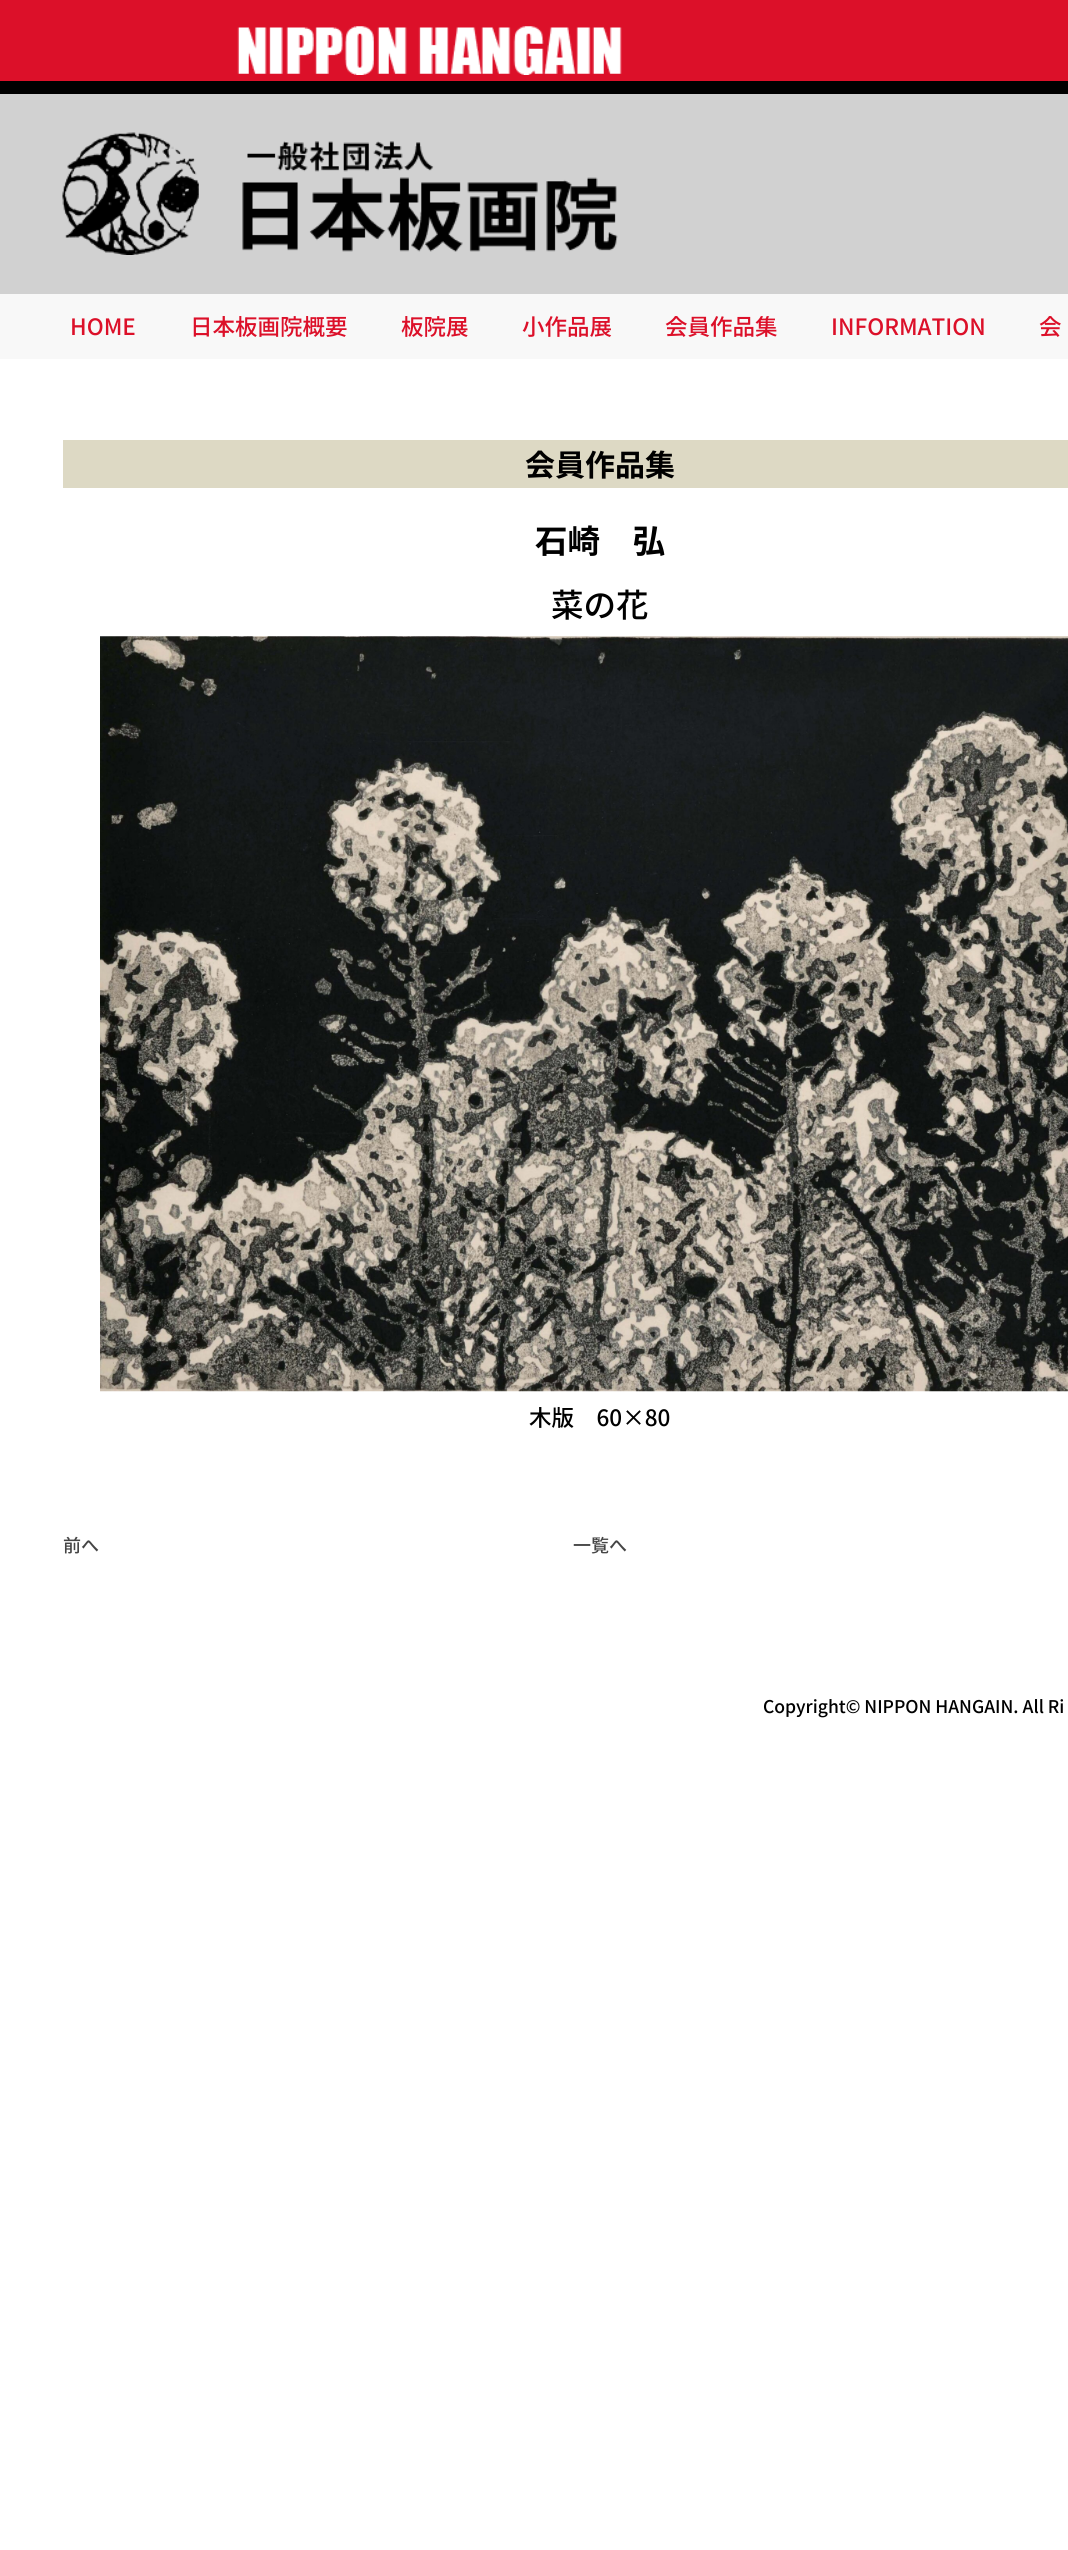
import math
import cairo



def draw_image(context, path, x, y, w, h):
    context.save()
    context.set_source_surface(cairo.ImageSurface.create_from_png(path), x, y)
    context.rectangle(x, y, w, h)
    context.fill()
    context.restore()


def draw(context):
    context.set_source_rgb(1, 1, 1)
    context.paint()
    context.set_source_rgb(209 / 255, 209 / 255, 209 / 255)
    context.rectangle(0, 94, 1068, 200)
    context.fill()
    context.set_source_rgb(220 / 255, 16 / 255, 41 / 255)
    context.rectangle(0, 0, 1068, 81)
    context.fill()
    context.set_source_rgb(0, 0, 0)
    context.rectangle(0, 81, 1068, 13)
    context.fill()
    draw_image(context, "images/1.png", 237, 26, 385, 49)
    draw_image(context, "images/2.png", 62, 132, 556, 123)
    context.set_source_rgb(248 / 255, 248 / 255, 248 / 255)
    context.rectangle(0, 294, 1068, 65)
    context.fill()
    context.set_source_rgb(221 / 255, 217 / 255, 196 / 255)
    context.rectangle(63, 440, 1005, 48)
    context.fill()
    draw_image(context, "images/3.png", 100, 636, 968, 756)
    context.select_font_face("Noto Sans JP Medium")
    context.set_font_size(22.5)
    context.set_source_rgb(220 / 255, 16 / 255, 41 / 255)
    context.move_to(70, 335)
    context.show_text("HOME")
    context.move_to(190, 335)
    context.show_text("日本板画院概要")
    context.move_to(401, 335)
    context.show_text("板院展")
    context.move_to(522, 335)
    context.show_text("小作品展")
    context.move_to(665, 335)
    context.show_text("会員作品集")
    context.move_to(831, 335)
    context.show_text("INFORMATION")
    context.move_to(1039, 335)
    context.show_text("会")
    context.select_font_face("Noto Sans JP", cairo.FontSlant.NORMAL, cairo.FontWeight.BOLD)
    context.set_font_size(30)
    context.set_source_rgb(0, 0, 0)
    context.move_to(525, 476)
    context.show_text("会員作品集")
    context.set_font_size(32.5)
    context.move_to(535, 553)
    context.show_text("石崎　弘")
    context.select_font_face("Noto Sans JP Medium")
    context.move_to(551, 617)
    context.show_text("菜の花")
    context.set_font_size(22.5)
    context.move_to(529, 1426)
    context.show_text("木版　60×80")
    context.set_font_size(18)
    context.set_source_rgb(69 / 255, 69 / 255, 69 / 255)
    context.move_to(63, 1552)
    context.show_text("前へ")
    context.move_to(573, 1552)
    context.show_text("一覧へ")
    context.set_font_size(17.5)
    context.set_source_rgb(0, 0, 0)
    context.move_to(763, 1713)
    context.show_text("Copyright© NIPPON HANGAIN. All Ri")


surface = cairo.ImageSurface(cairo.Format.RGB24, 1068, 2550)
context = cairo.Context(surface)
options = cairo.FontOptions()
options.set_hint_metrics(cairo.HintMetrics.OFF)
options.set_hint_style(cairo.HintStyle.NONE)
context.set_font_options(options)
context.set_miter_limit(4)
draw(context)
surface.write_to_png("out.png")
